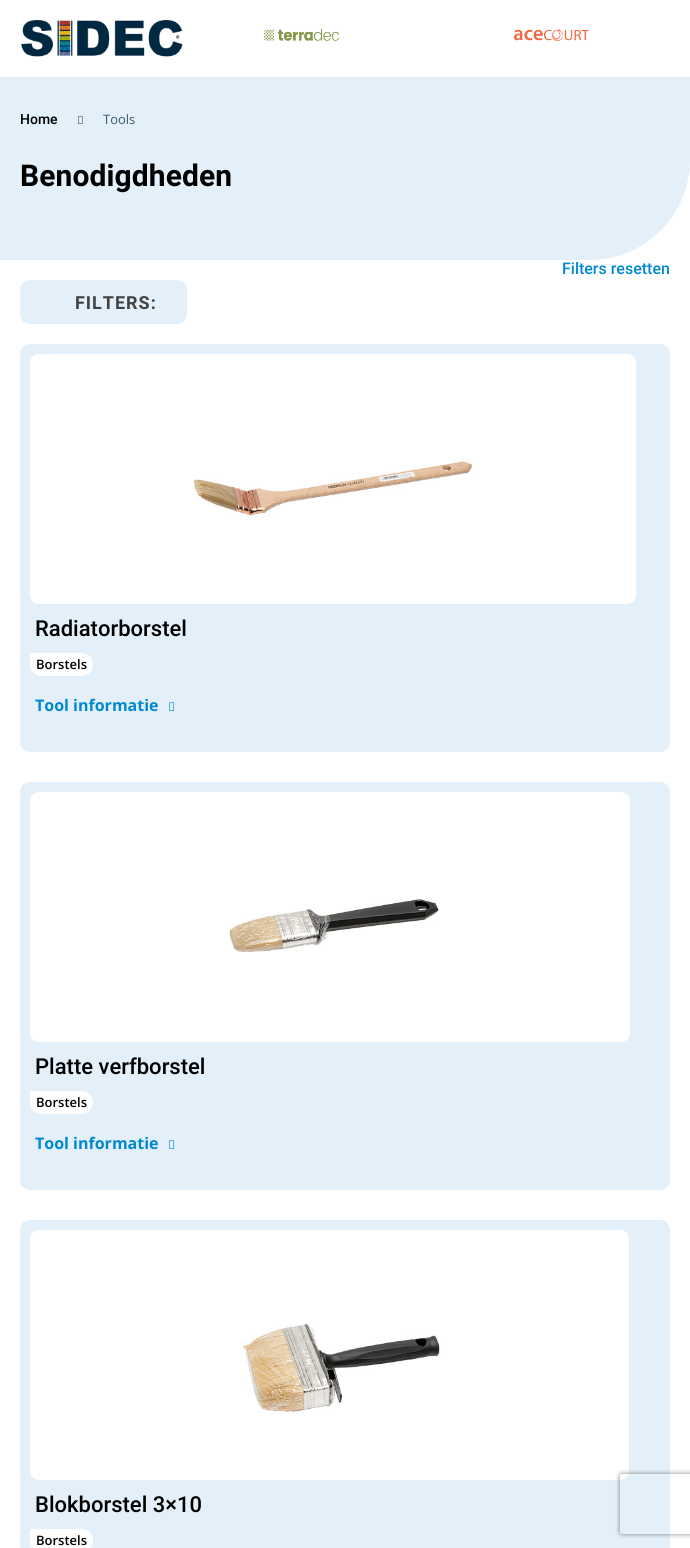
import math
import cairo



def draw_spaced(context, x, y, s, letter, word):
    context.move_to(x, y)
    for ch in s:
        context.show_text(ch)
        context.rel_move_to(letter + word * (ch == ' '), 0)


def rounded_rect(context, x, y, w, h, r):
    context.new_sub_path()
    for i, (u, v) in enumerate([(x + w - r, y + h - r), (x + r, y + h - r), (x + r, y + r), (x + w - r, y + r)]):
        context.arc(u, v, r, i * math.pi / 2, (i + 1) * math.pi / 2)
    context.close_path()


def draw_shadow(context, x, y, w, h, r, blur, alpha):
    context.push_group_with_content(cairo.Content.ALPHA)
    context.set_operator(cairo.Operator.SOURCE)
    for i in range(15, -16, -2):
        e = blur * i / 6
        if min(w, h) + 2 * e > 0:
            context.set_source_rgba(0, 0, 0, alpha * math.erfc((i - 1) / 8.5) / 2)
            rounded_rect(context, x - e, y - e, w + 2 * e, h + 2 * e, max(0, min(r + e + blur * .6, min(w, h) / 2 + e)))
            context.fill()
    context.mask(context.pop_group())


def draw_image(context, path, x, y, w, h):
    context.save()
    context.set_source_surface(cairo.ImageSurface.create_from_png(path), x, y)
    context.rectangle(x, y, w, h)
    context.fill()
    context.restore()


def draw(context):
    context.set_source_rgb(1, 1, 1)
    context.paint()
    draw_image(context, "images/1.png", 21, 20, 162, 37)
    draw_image(context, "images/2.png", 264, 29, 75, 12)
    draw_image(context, "images/3.png", 514, 29, 75, 12)
    context.set_source_rgb(227 / 255, 240 / 255, 249 / 255)
    context.new_path()
    context.move_to(0, 77)
    context.line_to(690, 77)
    context.line_to(690, 160)
    context.curve_to(690, 215, 645, 260, 590, 260)
    context.line_to(0, 260)
    context.close_path()
    context.fill()
    draw_image(context, "images/4.png", 78, 116, 5, 8)
    rounded_rect(context, 20, 280, 167, 44, 10)
    context.fill()
    rounded_rect(context, 20, 344, 650, 408, 10)
    context.fill()
    context.set_source_rgb(1, 1, 1)
    rounded_rect(context, 30, 354, 606, 250, 9)
    context.fill()
    draw_image(context, "images/5.png", 194, 460, 279, 58)
    context.new_path()
    context.move_to(30, 653)
    context.line_to(81.5, 653)
    context.curve_to(88, 653, 93, 658, 93, 664.5)
    context.curve_to(93, 671, 88, 676, 81.5, 676)
    context.line_to(41.5, 676)
    context.curve_to(35, 676, 30, 671, 30, 664.5)
    context.close_path()
    context.fill()
    draw_image(context, "images/6.png", 169, 702, 6, 9)
    context.set_source_rgb(227 / 255, 240 / 255, 249 / 255)
    rounded_rect(context, 20, 782, 650, 408, 10)
    context.fill()
    context.set_source_rgb(1, 1, 1)
    rounded_rect(context, 30, 792, 600, 250, 9)
    context.fill()
    draw_image(context, "images/7.png", 229, 899, 210, 53)
    context.new_path()
    context.move_to(30, 1091)
    context.line_to(81.5, 1091)
    context.curve_to(88, 1091, 93, 1096, 93, 1102.5)
    context.curve_to(93, 1109, 88, 1114, 81.5, 1114)
    context.line_to(41.5, 1114)
    context.curve_to(35, 1114, 30, 1109, 30, 1102.5)
    context.close_path()
    context.fill()
    draw_image(context, "images/6.png", 169, 1140, 6, 9)
    context.set_source_rgb(227 / 255, 240 / 255, 249 / 255)
    rounded_rect(context, 20, 1220, 650, 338, 10)
    context.fill()
    context.set_source_rgb(1, 1, 1)
    rounded_rect(context, 30, 1230, 599, 250, 9)
    context.fill()
    draw_image(context, "images/8.png", 243, 1323, 199, 91)
    context.new_path()
    context.move_to(30, 1529)
    context.line_to(81.5, 1529)
    context.curve_to(88, 1529, 93, 1534, 93, 1540.5)
    context.curve_to(93, 1547, 88, 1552, 81.5, 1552)
    context.line_to(41.5, 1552)
    context.curve_to(35, 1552, 30, 1547, 30, 1540.5)
    context.close_path()
    context.fill()
    context.save()
    context.set_fill_rule(cairo.FillRule.EVEN_ODD)
    context.new_path()
    context.move_to(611, 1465)
    context.line_to(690, 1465)
    context.line_to(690, 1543)
    context.line_to(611, 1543)
    context.close_path()
    context.move_to(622, 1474)
    context.line_to(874, 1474)
    context.curve_to(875, 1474, 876, 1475, 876, 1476)
    context.line_to(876, 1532)
    context.curve_to(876, 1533, 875, 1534, 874, 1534)
    context.line_to(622, 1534)
    context.curve_to(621, 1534, 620, 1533, 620, 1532)
    context.line_to(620, 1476)
    context.curve_to(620, 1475, 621, 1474, 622, 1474)
    context.close_path()
    context.clip()
    context.set_source_rgb(128 / 255, 128 / 255, 128 / 255)
    draw_shadow(context, 620, 1474, 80, 60, 2, 2.5, 1)
    context.restore()
    context.select_font_face("Roboto Medium")
    context.set_font_size(14)
    context.set_source_rgb(0, 0, 0)
    context.move_to(20, 124)
    context.show_text("Home")
    context.select_font_face("Open Sans")
    context.set_font_size(13)
    context.set_source_rgb(62 / 255, 90 / 255, 105 / 255)
    context.move_to(103, 124)
    context.show_text("Tools")
    context.select_font_face("Roboto", cairo.FontSlant.NORMAL, cairo.FontWeight.BOLD)
    context.set_font_size(30)
    context.set_source_rgb(0, 0, 0)
    draw_spaced(context, 20, 186, "Benodigdheden", 0.1, 0)
    context.select_font_face("Roboto Medium")
    context.set_font_size(16)
    context.set_source_rgb(0, 136 / 255, 209 / 255)
    context.move_to(562, 274)
    context.show_text("Filters resetten")
    context.select_font_face("Roboto", cairo.FontSlant.NORMAL, cairo.FontWeight.BOLD)
    context.set_font_size(18)
    context.set_source_rgb(67 / 255, 67 / 255, 67 / 255)
    draw_spaced(context, 75, 309, "FILTERS:", 1, 0)
    context.select_font_face("Roboto Medium")
    context.set_font_size(22)
    context.set_source_rgb(0, 0, 0)
    context.move_to(35, 636)
    context.show_text("Radiatorborstel")
    context.select_font_face("Open Sans SemiBold")
    context.set_font_size(13)
    context.move_to(36, 669)
    context.show_text("Borstels")
    context.select_font_face("Open Sans", cairo.FontSlant.NORMAL, cairo.FontWeight.BOLD)
    context.set_font_size(16)
    context.set_source_rgb(0, 136 / 255, 209 / 255)
    context.move_to(35, 711)
    context.show_text("Tool informatie")
    context.select_font_face("Roboto Medium")
    context.set_font_size(22)
    context.set_source_rgb(0, 0, 0)
    context.move_to(35, 1074)
    context.show_text("Platte verfborstel")
    context.select_font_face("Open Sans SemiBold")
    context.set_font_size(13)
    context.move_to(36, 1107)
    context.show_text("Borstels")
    context.select_font_face("Open Sans", cairo.FontSlant.NORMAL, cairo.FontWeight.BOLD)
    context.set_font_size(16)
    context.set_source_rgb(0, 136 / 255, 209 / 255)
    context.move_to(35, 1149)
    context.show_text("Tool informatie")
    context.select_font_face("Roboto Medium")
    context.set_font_size(22)
    context.set_source_rgb(0, 0, 0)
    context.move_to(35, 1512)
    context.show_text("Blokborstel 3×10")
    context.select_font_face("Open Sans SemiBold")
    context.set_font_size(13)
    context.move_to(36, 1545)
    context.show_text("Borstels")


surface = cairo.ImageSurface(cairo.Format.RGB24, 690, 1548)
context = cairo.Context(surface)
options = cairo.FontOptions()
options.set_hint_metrics(cairo.HintMetrics.OFF)
options.set_hint_style(cairo.HintStyle.NONE)
context.set_font_options(options)
context.set_miter_limit(4)
draw(context)
surface.write_to_png("out.png")
